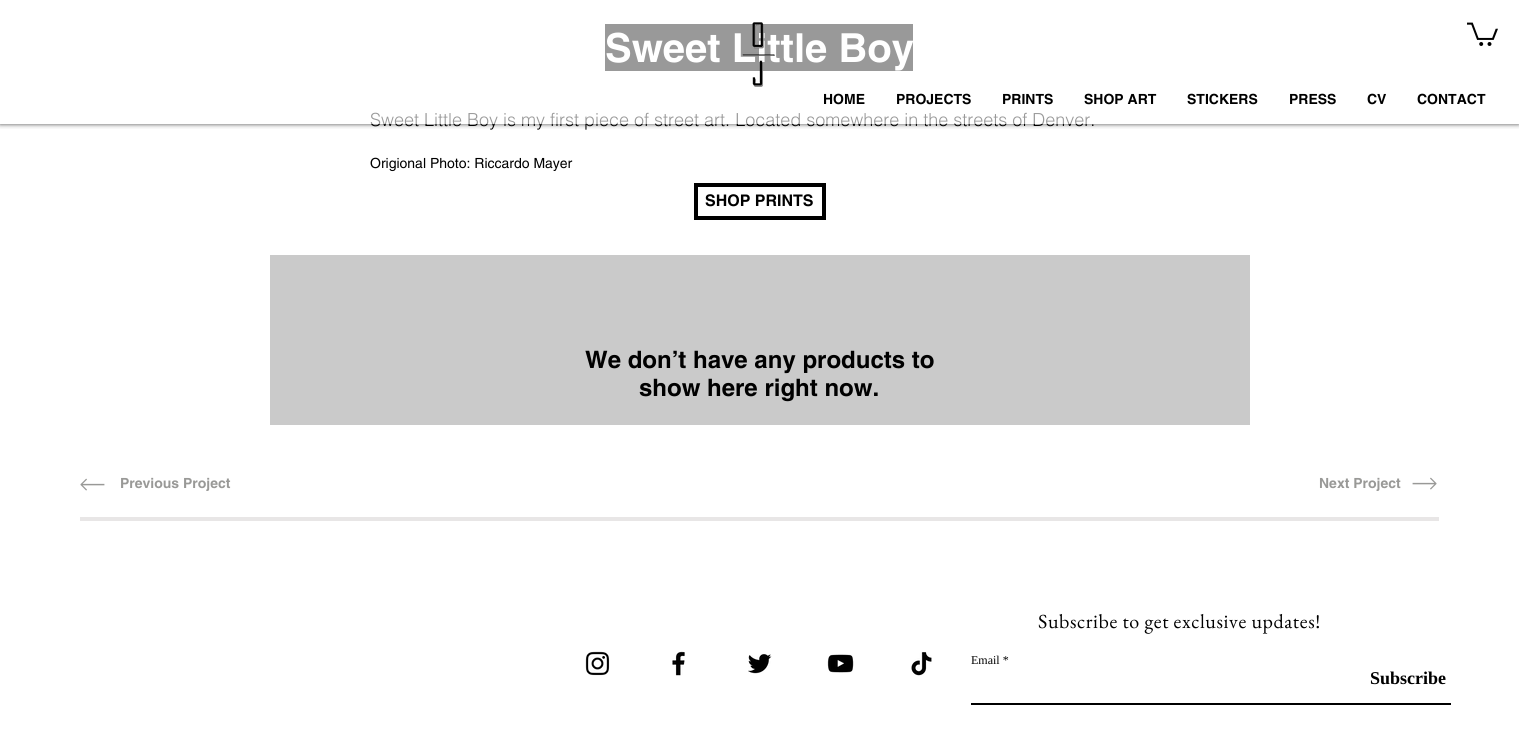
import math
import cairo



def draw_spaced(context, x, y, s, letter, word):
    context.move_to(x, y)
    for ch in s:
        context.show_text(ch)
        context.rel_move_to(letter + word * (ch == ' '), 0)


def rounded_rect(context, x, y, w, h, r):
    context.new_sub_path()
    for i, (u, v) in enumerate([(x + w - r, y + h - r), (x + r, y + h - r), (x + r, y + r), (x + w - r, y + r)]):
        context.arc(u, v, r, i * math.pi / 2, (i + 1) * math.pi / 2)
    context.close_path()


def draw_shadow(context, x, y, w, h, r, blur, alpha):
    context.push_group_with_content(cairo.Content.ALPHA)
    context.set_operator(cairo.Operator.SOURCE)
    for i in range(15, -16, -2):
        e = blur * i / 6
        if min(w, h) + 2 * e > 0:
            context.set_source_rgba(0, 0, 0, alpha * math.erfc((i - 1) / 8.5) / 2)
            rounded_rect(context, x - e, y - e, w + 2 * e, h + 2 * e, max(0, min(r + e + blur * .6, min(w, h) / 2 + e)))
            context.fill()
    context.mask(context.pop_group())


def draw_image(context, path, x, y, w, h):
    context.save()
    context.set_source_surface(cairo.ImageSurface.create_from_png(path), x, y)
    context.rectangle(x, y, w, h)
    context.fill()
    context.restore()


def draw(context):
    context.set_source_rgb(1, 1, 1)
    context.paint()
    context.set_source_rgb(0, 0, 0)
    context.rectangle(605, 24, 308, 47)
    context.fill()
    context.rectangle(696, 185, 128, 33)
    context.set_line_width(4)
    context.stroke()
    context.set_source_rgb(202 / 255, 202 / 255, 202 / 255)
    context.rectangle(270, 255, 980, 170)
    context.fill()
    draw_image(context, "images/1.png", 80, 478, 25, 13)
    draw_image(context, "images/2.png", 1412, 477, 25, 13)
    context.set_source_rgb(232 / 255, 230 / 255, 230 / 255)
    context.rectangle(80, 517, 1359, 4)
    context.fill()
    context.save()
    context.rectangle(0, 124, 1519, 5)
    context.clip()
    context.set_source_rgb(0, 0, 0)
    draw_shadow(context, 0, 0, 1519, 124, 0, 2.5, 0.7)
    context.restore()
    draw_image(context, "images/3.png", 1467, 22, 31, 24)
    draw_image(context, "images/5.png", 585, 651, 25, 25)
    draw_image(context, "images/6.png", 672, 651, 13, 25)
    draw_image(context, "images/7.png", 748, 654, 24, 20)
    draw_image(context, "images/8.png", 827, 654, 27, 19)
    draw_image(context, "images/9.png", 911, 652, 21, 24)
    context.set_source_rgb(0, 0, 0)
    context.rectangle(971, 703, 480, 2)
    context.fill()
    context.select_font_face("helvetica", cairo.FontSlant.NORMAL, cairo.FontWeight.BOLD)
    context.set_font_size(40)
    context.set_source_rgb(1, 1, 1)
    context.move_to(605, 62)
    context.show_text("Sweet Little Boy")
    context.select_font_face("helvetica Light")
    context.set_font_size(18)
    context.set_source_rgb(0, 0, 0)
    context.move_to(370, 126)
    context.show_text("Sweet Little Boy is my first piece of street art. Located somewhere in the streets of Denver.")
    context.select_font_face("helvetica")
    context.set_font_size(14)
    context.move_to(370, 168)
    context.show_text("Origional Photo: Riccardo Mayer")
    context.select_font_face("helvetica", cairo.FontSlant.NORMAL, cairo.FontWeight.BOLD)
    context.set_font_size(16)
    context.move_to(705, 206)
    context.show_text("SHOP PRINTS")
    context.set_font_size(24)
    context.move_to(585, 368)
    context.show_text("We don’t have any products to")
    context.move_to(639, 396)
    context.show_text("show here right now.")
    context.set_font_size(14)
    context.set_source_rgb(153 / 255, 153 / 255, 151 / 255)
    context.move_to(120, 488)
    context.show_text("Previous Project")
    context.move_to(1319, 488)
    context.show_text("Next Project")
    context.set_source_rgba(1, 1, 1, 0.6)
    context.rectangle(370, 24, 720, 100)
    context.fill()
    draw_image(context, "images/4.png", 742, 22, 33, 65)
    context.set_source_rgb(0, 0, 0)
    context.move_to(823, 104)
    context.show_text("HOME")
    context.move_to(896, 104)
    context.show_text("PROJECTS")
    context.move_to(1002, 104)
    context.show_text("PRINTS")
    context.move_to(1084, 104)
    context.show_text("SHOP ART")
    context.move_to(1187, 104)
    context.show_text("STICKERS")
    context.move_to(1289, 104)
    context.show_text("PRESS")
    context.move_to(1367, 104)
    context.show_text("CV")
    context.move_to(1417, 104)
    context.show_text("CONTACT")
    context.select_font_face("EB Garamond")
    context.set_font_size(20)
    draw_spaced(context, 1038, 628, "Subscribe to get exclusive updates!", 0.6, 0)
    context.select_font_face("Liberation Serif")
    context.set_font_size(12)
    context.move_to(971, 664)
    context.show_text("Email *")
    context.select_font_face("Liberation Serif", cairo.FontSlant.NORMAL, cairo.FontWeight.BOLD)
    context.set_font_size(18)
    context.move_to(1370, 684)
    context.show_text("Subscribe")


surface = cairo.ImageSurface(cairo.Format.RGB24, 1519, 739)
context = cairo.Context(surface)
options = cairo.FontOptions()
options.set_hint_metrics(cairo.HintMetrics.OFF)
options.set_hint_style(cairo.HintStyle.NONE)
context.set_font_options(options)
context.set_miter_limit(4)
draw(context)
surface.write_to_png("out.png")
